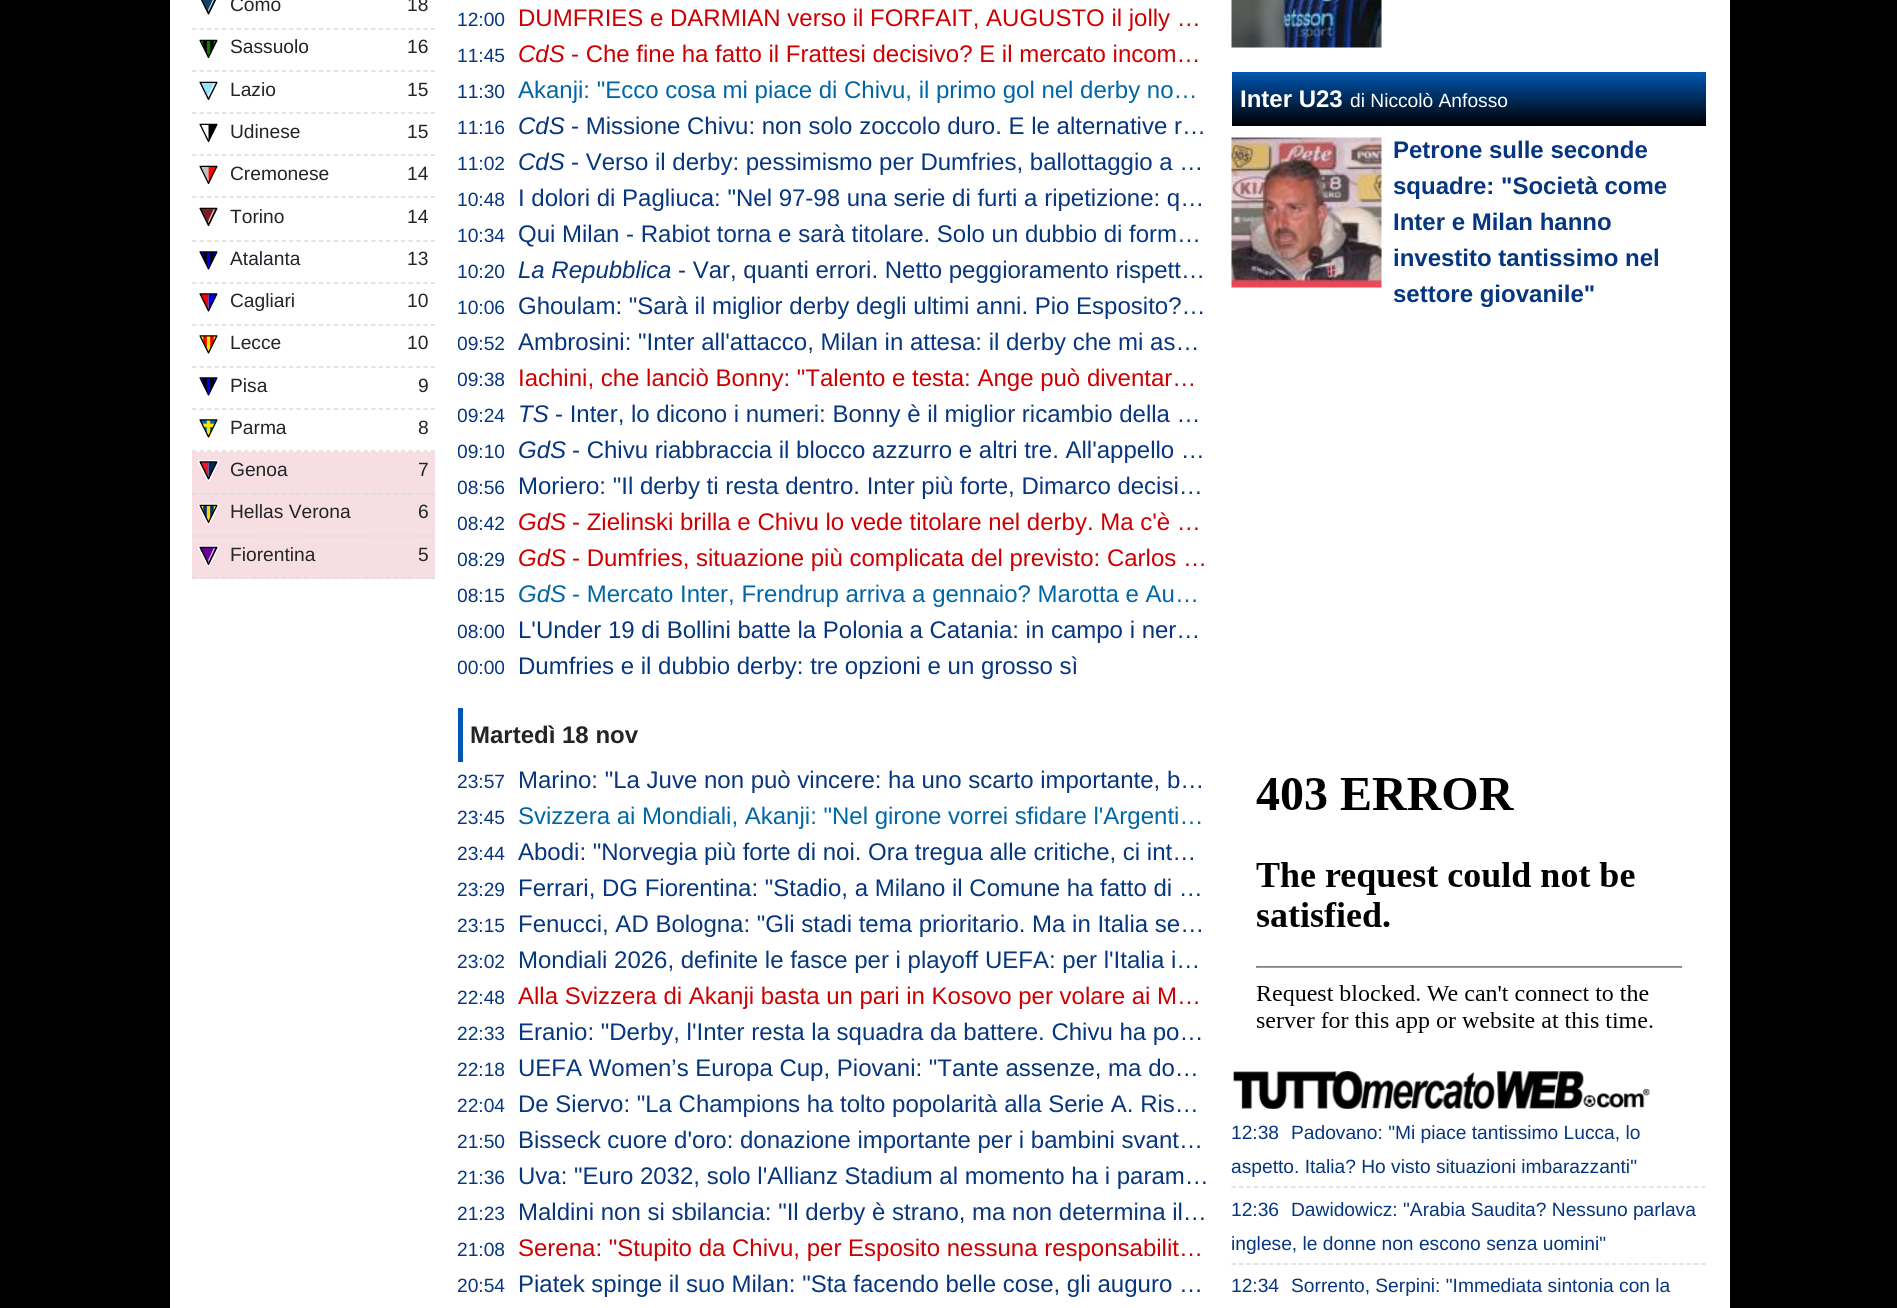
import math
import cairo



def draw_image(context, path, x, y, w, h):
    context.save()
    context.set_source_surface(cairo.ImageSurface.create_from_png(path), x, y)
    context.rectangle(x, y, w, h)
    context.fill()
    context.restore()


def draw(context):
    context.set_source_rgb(0, 0, 0)
    context.paint()
    context.set_source_rgb(1, 1, 1)
    context.rectangle(170, 0, 1560, 1308)
    context.fill()
    context.new_path()
    context.move_to(192, 29)
    context.line_to(435, 29)
    context.set_source_rgb(221 / 255, 221 / 255, 221 / 255)
    context.set_line_width(1.5)
    context.set_dash([4.5, 2.96])
    context.stroke()
    draw_image(context, "images/1.png", 201, 0, 15, 15)
    context.new_path()
    context.move_to(192, 71)
    context.line_to(435, 71)
    context.stroke()
    draw_image(context, "images/2.png", 199, 39, 19, 19)
    context.new_path()
    context.move_to(192, 113)
    context.line_to(435, 113)
    context.stroke()
    draw_image(context, "images/3.png", 199, 81, 19, 19)
    context.new_path()
    context.move_to(192, 155)
    context.line_to(435, 155)
    context.stroke()
    draw_image(context, "images/4.png", 199, 123, 19, 19)
    context.new_path()
    context.move_to(192, 197)
    context.line_to(435, 197)
    context.stroke()
    draw_image(context, "images/5.png", 199, 165, 19, 19)
    context.new_path()
    context.move_to(192, 241)
    context.line_to(435, 241)
    context.stroke()
    draw_image(context, "images/6.png", 199, 207, 19, 19)
    context.new_path()
    context.move_to(192, 283)
    context.line_to(435, 283)
    context.stroke()
    draw_image(context, "images/7.png", 199, 251, 19, 19)
    context.new_path()
    context.move_to(192, 325)
    context.line_to(435, 325)
    context.stroke()
    draw_image(context, "images/8.png", 199, 293, 19, 19)
    context.new_path()
    context.move_to(192, 367)
    context.line_to(435, 367)
    context.stroke()
    draw_image(context, "images/9.png", 199, 335, 19, 19)
    context.new_path()
    context.move_to(192, 409)
    context.line_to(435, 409)
    context.stroke()
    draw_image(context, "images/7.png", 199, 377, 19, 19)
    context.new_path()
    context.move_to(192, 451)
    context.line_to(435, 451)
    context.stroke()
    draw_image(context, "images/10.png", 199, 419, 19, 19)
    context.set_source_rgb(247 / 255, 222 / 255, 226 / 255)
    context.rectangle(192, 452, 243, 127)
    context.fill()
    context.new_path()
    context.move_to(192, 494)
    context.line_to(435, 494)
    context.set_source_rgb(221 / 255, 221 / 255, 221 / 255)
    context.stroke()
    draw_image(context, "images/11.png", 198, 460, 21, 21)
    context.new_path()
    context.move_to(192, 536)
    context.line_to(435, 536)
    context.stroke()
    draw_image(context, "images/12.png", 198, 503, 21, 22)
    context.new_path()
    context.move_to(192, 578)
    context.line_to(435, 578)
    context.stroke()
    draw_image(context, "images/13.png", 198, 545, 21, 22)
    context.set_source_rgb(0, 86 / 255, 179 / 255)
    context.rectangle(458, 708, 5, 54)
    context.fill()
    draw_image(context, "images/14.png", 1231, 0, 151, 48)
    gradient = cairo.LinearGradient(1469, 72, 1469, 126)
    gradient.add_color_stop_rgba(0, 0, 86 / 255, 179 / 255, 1)
    gradient.add_color_stop_rgba(1, 0, 0, 0, 1)
    context.set_source(gradient)
    context.rectangle(1232, 72, 474, 54)
    context.fill()
    draw_image(context, "images/15.png", 1231, 137, 151, 151)
    draw_image(context, "images/16.png", 1256, 778, 426, 255)
    draw_image(context, "images/17.png", 1233, 1071, 417, 38)
    context.new_path()
    context.move_to(1231.5, 1187)
    context.line_to(1705.5, 1187)
    context.set_source_rgb(221 / 255, 221 / 255, 221 / 255)
    context.stroke()
    context.new_path()
    context.move_to(1231.5, 1264)
    context.line_to(1705.5, 1264)
    context.stroke()
    context.select_font_face("Liberation Sans")
    context.set_font_size(19.2)
    context.set_source_rgb(33 / 255, 37 / 255, 41 / 255)
    context.move_to(230, 11)
    context.show_text("Como")
    context.move_to(407, 11)
    context.show_text("18")
    context.move_to(230, 53)
    context.show_text("Sassuolo")
    context.move_to(407, 53)
    context.show_text("16")
    context.move_to(230, 96)
    context.show_text("Lazio")
    context.move_to(407, 96)
    context.show_text("15")
    context.move_to(230, 138)
    context.show_text("Udinese")
    context.move_to(407, 138)
    context.show_text("15")
    context.move_to(230, 180)
    context.show_text("Cremonese")
    context.move_to(407, 180)
    context.show_text("14")
    context.move_to(230, 223)
    context.show_text("Torino")
    context.move_to(407, 223)
    context.show_text("14")
    context.move_to(230, 265)
    context.show_text("Atalanta")
    context.move_to(407, 265)
    context.show_text("13")
    context.move_to(230, 307)
    context.show_text("Cagliari")
    context.move_to(407, 307)
    context.show_text("10")
    context.move_to(230, 349)
    context.show_text("Lecce")
    context.move_to(407, 349)
    context.show_text("10")
    context.move_to(230, 392)
    context.show_text("Pisa")
    context.move_to(418, 392)
    context.show_text("9")
    context.move_to(230, 434)
    context.show_text("Parma")
    context.move_to(418, 434)
    context.show_text("8")
    context.move_to(230, 476)
    context.show_text("Genoa")
    context.move_to(418, 476)
    context.show_text("7")
    context.move_to(230, 518)
    context.show_text("Hellas Verona")
    context.move_to(418, 518)
    context.show_text("6")
    context.move_to(230, 561)
    context.show_text("Fiorentina")
    context.move_to(418, 561)
    context.show_text("5")
    context.set_source_rgb(6 / 255, 54 / 255, 126 / 255)
    context.move_to(457, 26)
    context.show_text("12:00")
    context.set_font_size(24)
    context.set_source_rgb(204 / 255, 0, 0)
    context.move_to(518, 26)
    context.show_text("DUMFRIES e DARMIAN verso il FORFAIT, AUGUSTO il jolly …")
    context.set_font_size(19.2)
    context.set_source_rgb(6 / 255, 54 / 255, 126 / 255)
    context.move_to(457, 62)
    context.show_text("11:45")
    context.select_font_face("Liberation Sans", cairo.FontSlant.ITALIC)
    context.set_font_size(24)
    context.set_source_rgb(204 / 255, 0, 0)
    context.move_to(518, 62)
    context.show_text("CdS")
    context.select_font_face("Liberation Sans")
    context.move_to(571, 62)
    context.show_text("- Che fine ha fatto il Frattesi decisivo? E il mercato incom…")
    context.set_font_size(19.2)
    context.set_source_rgb(6 / 255, 54 / 255, 126 / 255)
    context.move_to(457, 98)
    context.show_text("11:30")
    context.set_font_size(24)
    context.set_source_rgb(0, 102 / 255, 166 / 255)
    context.move_to(518, 98)
    context.show_text("Akanji: \"Ecco cosa mi piace di Chivu, il primo gol nel derby no…")
    context.set_font_size(19.2)
    context.set_source_rgb(6 / 255, 54 / 255, 126 / 255)
    context.move_to(457, 134)
    context.show_text("11:16")
    context.select_font_face("Liberation Sans", cairo.FontSlant.ITALIC)
    context.set_font_size(24)
    context.move_to(518, 134)
    context.show_text("CdS")
    context.select_font_face("Liberation Sans")
    context.move_to(571, 134)
    context.show_text("- Missione Chivu: non solo zoccolo duro. E le alternative r…")
    context.set_font_size(19.2)
    context.move_to(457, 170)
    context.show_text("11:02")
    context.select_font_face("Liberation Sans", cairo.FontSlant.ITALIC)
    context.set_font_size(24)
    context.move_to(518, 170)
    context.show_text("CdS")
    context.select_font_face("Liberation Sans")
    context.move_to(571, 170)
    context.show_text("- Verso il derby: pessimismo per Dumfries, ballottaggio a …")
    context.set_font_size(19.2)
    context.move_to(457, 206)
    context.show_text("10:48")
    context.set_font_size(24)
    context.move_to(518, 206)
    context.show_text("I dolori di Pagliuca: \"Nel 97-98 una serie di furti a ripetizione: q…")
    context.set_font_size(19.2)
    context.move_to(457, 242)
    context.show_text("10:34")
    context.set_font_size(24)
    context.move_to(518, 242)
    context.show_text("Qui Milan - Rabiot torna e sarà titolare. Solo un dubbio di form…")
    context.set_font_size(19.2)
    context.move_to(457, 278)
    context.show_text("10:20")
    context.select_font_face("Liberation Sans", cairo.FontSlant.ITALIC)
    context.set_font_size(24)
    context.move_to(518, 278)
    context.show_text("La Repubblica")
    context.select_font_face("Liberation Sans")
    context.move_to(678, 278)
    context.show_text("- Var, quanti errori. Netto peggioramento rispett…")
    context.set_font_size(19.2)
    context.move_to(457, 314)
    context.show_text("10:06")
    context.set_font_size(24)
    context.move_to(518, 314)
    context.show_text("Ghoulam: \"Sarà il miglior derby degli ultimi anni. Pio Esposito?…")
    context.save()
    context.rectangle(458, 324, 751, 36)
    context.clip()
    context.set_font_size(19.2)
    context.move_to(457, 350)
    context.show_text("09:52")
    context.restore()
    context.move_to(518, 350)
    context.show_text("Ambrosini: \"Inter all'attacco, Milan in attesa: il derby che mi as…")
    context.save()
    context.rectangle(458, 360, 751, 36)
    context.clip()
    context.set_font_size(19.2)
    context.move_to(457, 386)
    context.show_text("09:38")
    context.restore()
    context.set_source_rgb(204 / 255, 0, 0)
    context.move_to(518, 386)
    context.show_text("Iachini, che lanciò Bonny: \"Talento e testa: Ange può diventar…")
    context.save()
    context.rectangle(458, 396, 751, 36)
    context.clip()
    context.set_font_size(19.2)
    context.set_source_rgb(6 / 255, 54 / 255, 126 / 255)
    context.move_to(457, 422)
    context.show_text("09:24")
    context.restore()
    context.select_font_face("Liberation Sans", cairo.FontSlant.ITALIC)
    context.set_source_rgb(6 / 255, 54 / 255, 126 / 255)
    context.move_to(518, 422)
    context.show_text("TS")
    context.select_font_face("Liberation Sans")
    context.move_to(555, 422)
    context.show_text("- Inter, lo dicono i numeri: Bonny è il miglior ricambio della …")
    context.save()
    context.rectangle(458, 432, 751, 36)
    context.clip()
    context.set_font_size(19.2)
    context.move_to(457, 458)
    context.show_text("09:10")
    context.restore()
    context.select_font_face("Liberation Sans", cairo.FontSlant.ITALIC)
    context.move_to(518, 458)
    context.show_text("GdS")
    context.select_font_face("Liberation Sans")
    context.move_to(572, 458)
    context.show_text("- Chivu riabbraccia il blocco azzurro e altri tre. All'appello …")
    context.save()
    context.rectangle(458, 468, 751, 36)
    context.clip()
    context.set_font_size(19.2)
    context.move_to(457, 494)
    context.show_text("08:56")
    context.restore()
    context.move_to(518, 494)
    context.show_text("Moriero: \"Il derby ti resta dentro. Inter più forte, Dimarco decisi…")
    context.save()
    context.rectangle(458, 504, 751, 36)
    context.clip()
    context.set_font_size(19.2)
    context.move_to(457, 530)
    context.show_text("08:42")
    context.restore()
    context.select_font_face("Liberation Sans", cairo.FontSlant.ITALIC)
    context.set_source_rgb(204 / 255, 0, 0)
    context.move_to(518, 530)
    context.show_text("GdS")
    context.select_font_face("Liberation Sans")
    context.move_to(572, 530)
    context.show_text("- Zielinski brilla e Chivu lo vede titolare nel derby. Ma c'è …")
    context.save()
    context.rectangle(458, 540, 751, 36)
    context.clip()
    context.set_font_size(19.2)
    context.set_source_rgb(6 / 255, 54 / 255, 126 / 255)
    context.move_to(457, 566)
    context.show_text("08:29")
    context.restore()
    context.select_font_face("Liberation Sans", cairo.FontSlant.ITALIC)
    context.move_to(518, 566)
    context.show_text("GdS")
    context.select_font_face("Liberation Sans")
    context.move_to(572, 566)
    context.show_text("- Dumfries, situazione più complicata del previsto: Carlos …")
    context.save()
    context.rectangle(458, 576, 751, 36)
    context.clip()
    context.set_font_size(19.2)
    context.set_source_rgb(6 / 255, 54 / 255, 126 / 255)
    context.move_to(457, 602)
    context.show_text("08:15")
    context.restore()
    context.select_font_face("Liberation Sans", cairo.FontSlant.ITALIC)
    context.set_source_rgb(0, 102 / 255, 166 / 255)
    context.move_to(518, 602)
    context.show_text("GdS")
    context.select_font_face("Liberation Sans")
    context.move_to(572, 602)
    context.show_text("- Mercato Inter, Frendrup arriva a gennaio? Marotta e Au…")
    context.save()
    context.rectangle(458, 612, 751, 36)
    context.clip()
    context.set_font_size(19.2)
    context.set_source_rgb(6 / 255, 54 / 255, 126 / 255)
    context.move_to(457, 638)
    context.show_text("08:00")
    context.restore()
    context.set_source_rgb(6 / 255, 54 / 255, 126 / 255)
    context.move_to(518, 638)
    context.show_text("L'Under 19 di Bollini batte la Polonia a Catania: in campo i ner…")
    context.save()
    context.rectangle(458, 648, 751, 36)
    context.clip()
    context.set_font_size(19.2)
    context.move_to(457, 674)
    context.show_text("00:00")
    context.restore()
    context.move_to(518, 674)
    context.show_text("Dumfries e il dubbio derby: tre opzioni e un grosso sì")
    context.select_font_face("Liberation Sans", cairo.FontSlant.NORMAL, cairo.FontWeight.BOLD)
    context.set_source_rgb(33 / 255, 37 / 255, 41 / 255)
    context.move_to(470, 743)
    context.show_text("Martedì 18 nov")
    context.select_font_face("Liberation Sans")
    context.set_font_size(19.2)
    context.set_source_rgb(6 / 255, 54 / 255, 126 / 255)
    context.move_to(457, 788)
    context.show_text("23:57")
    context.set_font_size(24)
    context.move_to(518, 788)
    context.show_text("Marino: \"La Juve non può vincere: ha uno scarto importante, b…")
    context.set_font_size(19.2)
    context.move_to(457, 824)
    context.show_text("23:45")
    context.set_font_size(24)
    context.set_source_rgb(0, 102 / 255, 166 / 255)
    context.move_to(518, 824)
    context.show_text("Svizzera ai Mondiali, Akanji: \"Nel girone vorrei sfidare l'Argenti…")
    context.set_font_size(19.2)
    context.set_source_rgb(6 / 255, 54 / 255, 126 / 255)
    context.move_to(457, 860)
    context.show_text("23:44")
    context.set_font_size(24)
    context.move_to(518, 860)
    context.show_text("Abodi: \"Norvegia più forte di noi. Ora tregua alle critiche, ci int…")
    context.set_font_size(19.2)
    context.move_to(457, 896)
    context.show_text("23:29")
    context.set_font_size(24)
    context.move_to(518, 896)
    context.show_text("Ferrari, DG Fiorentina: \"Stadio, a Milano il Comune ha fatto di …")
    context.set_font_size(19.2)
    context.move_to(457, 932)
    context.show_text("23:15")
    context.set_font_size(24)
    context.move_to(518, 932)
    context.show_text("Fenucci, AD Bologna: \"Gli stadi tema prioritario. Ma in Italia se…")
    context.set_font_size(19.2)
    context.move_to(457, 968)
    context.show_text("23:02")
    context.set_font_size(24)
    context.move_to(518, 968)
    context.show_text("Mondiali 2026, definite le fasce per i playoff UEFA: per l'Italia i…")
    context.set_font_size(19.2)
    context.move_to(457, 1004)
    context.show_text("22:48")
    context.set_font_size(24)
    context.set_source_rgb(204 / 255, 0, 0)
    context.move_to(518, 1004)
    context.show_text("Alla Svizzera di Akanji basta un pari in Kosovo per volare ai M…")
    context.set_font_size(19.2)
    context.set_source_rgb(6 / 255, 54 / 255, 126 / 255)
    context.move_to(457, 1040)
    context.show_text("22:33")
    context.set_font_size(24)
    context.move_to(518, 1040)
    context.show_text("Eranio: \"Derby, l'Inter resta la squadra da battere. Chivu ha po…")
    context.set_font_size(19.2)
    context.move_to(457, 1076)
    context.show_text("22:18")
    context.set_font_size(24)
    context.move_to(518, 1076)
    context.show_text("UEFA Women’s Europa Cup, Piovani: \"Tante assenze, ma do…")
    context.set_font_size(19.2)
    context.move_to(457, 1112)
    context.show_text("22:04")
    context.set_font_size(24)
    context.move_to(518, 1112)
    context.show_text("De Siervo: \"La Champions ha tolto popolarità alla Serie A. Ris…")
    context.set_font_size(19.2)
    context.move_to(457, 1148)
    context.show_text("21:50")
    context.set_font_size(24)
    context.move_to(518, 1148)
    context.show_text("Bisseck cuore d'oro: donazione importante per i bambini svant…")
    context.set_font_size(19.2)
    context.move_to(457, 1184)
    context.show_text("21:36")
    context.set_font_size(24)
    context.move_to(518, 1184)
    context.show_text("Uva: \"Euro 2032, solo l'Allianz Stadium al momento ha i param…")
    context.set_font_size(19.2)
    context.move_to(457, 1220)
    context.show_text("21:23")
    context.set_font_size(24)
    context.move_to(518, 1220)
    context.show_text("Maldini non si sbilancia: \"Il derby è strano, ma non determina il…")
    context.set_font_size(19.2)
    context.move_to(457, 1256)
    context.show_text("21:08")
    context.set_font_size(24)
    context.set_source_rgb(204 / 255, 0, 0)
    context.move_to(518, 1256)
    context.show_text("Serena: \"Stupito da Chivu, per Esposito nessuna responsabilit…")
    context.set_font_size(19.2)
    context.set_source_rgb(6 / 255, 54 / 255, 126 / 255)
    context.move_to(457, 1292)
    context.show_text("20:54")
    context.set_font_size(24)
    context.move_to(518, 1292)
    context.show_text("Piatek spinge il suo Milan: \"Sta facendo belle cose, gli auguro …")
    context.select_font_face("Liberation Sans", cairo.FontSlant.NORMAL, cairo.FontWeight.BOLD)
    context.set_source_rgb(1, 1, 1)
    context.move_to(1240, 107)
    context.show_text("Inter U23")
    context.select_font_face("Liberation Sans")
    context.set_font_size(19.2)
    context.move_to(1350, 107)
    context.show_text("di Niccolò Anfosso")
    context.select_font_face("Liberation Sans", cairo.FontSlant.NORMAL, cairo.FontWeight.BOLD)
    context.set_font_size(24)
    context.set_source_rgb(6 / 255, 54 / 255, 126 / 255)
    context.move_to(1393, 158)
    context.show_text("Petrone sulle seconde")
    context.move_to(1393, 194)
    context.show_text("squadre: \"Società come")
    context.move_to(1393, 230)
    context.show_text("Inter e Milan hanno")
    context.move_to(1393, 266)
    context.show_text("investito tantissimo nel")
    context.move_to(1393, 302)
    context.show_text("settore giovanile\"")
    context.select_font_face("Liberation Sans")
    context.set_font_size(19.2)
    context.move_to(1231, 1139)
    context.show_text("12:38")
    context.move_to(1291, 1139)
    context.show_text("Padovano: \"Mi piace tantissimo Lucca, lo")
    context.move_to(1231, 1173)
    context.show_text("aspetto. Italia? Ho visto situazioni imbarazzanti\"")
    context.move_to(1231, 1216)
    context.show_text("12:36")
    context.move_to(1291, 1216)
    context.show_text("Dawidowicz: \"Arabia Saudita? Nessuno parlava")
    context.move_to(1231, 1250)
    context.show_text("inglese, le donne non escono senza uomini\"")
    context.move_to(1231, 1292)
    context.show_text("12:34")
    context.move_to(1291, 1292)
    context.show_text("Sorrento, Serpini: \"Immediata sintonia con la")


surface = cairo.ImageSurface(cairo.Format.RGB24, 1897, 1308)
context = cairo.Context(surface)
options = cairo.FontOptions()
options.set_hint_metrics(cairo.HintMetrics.OFF)
options.set_hint_style(cairo.HintStyle.NONE)
context.set_font_options(options)
context.set_miter_limit(4)
draw(context)
surface.write_to_png("out.png")
